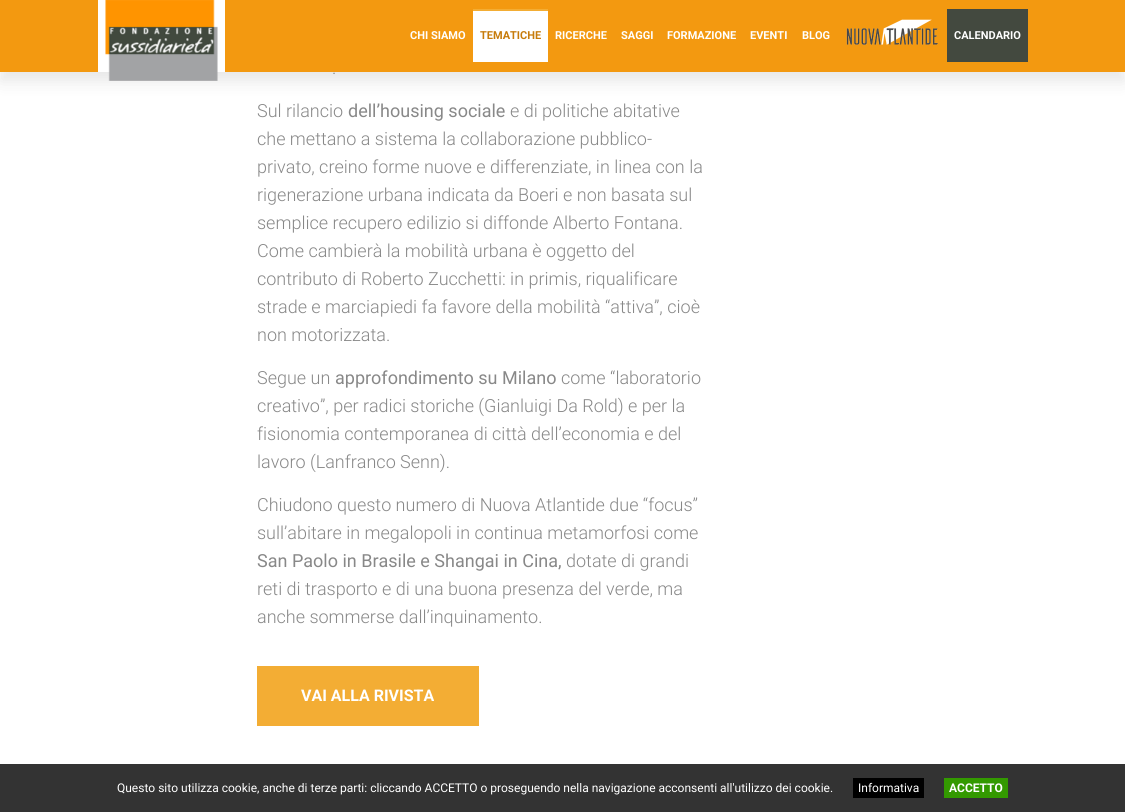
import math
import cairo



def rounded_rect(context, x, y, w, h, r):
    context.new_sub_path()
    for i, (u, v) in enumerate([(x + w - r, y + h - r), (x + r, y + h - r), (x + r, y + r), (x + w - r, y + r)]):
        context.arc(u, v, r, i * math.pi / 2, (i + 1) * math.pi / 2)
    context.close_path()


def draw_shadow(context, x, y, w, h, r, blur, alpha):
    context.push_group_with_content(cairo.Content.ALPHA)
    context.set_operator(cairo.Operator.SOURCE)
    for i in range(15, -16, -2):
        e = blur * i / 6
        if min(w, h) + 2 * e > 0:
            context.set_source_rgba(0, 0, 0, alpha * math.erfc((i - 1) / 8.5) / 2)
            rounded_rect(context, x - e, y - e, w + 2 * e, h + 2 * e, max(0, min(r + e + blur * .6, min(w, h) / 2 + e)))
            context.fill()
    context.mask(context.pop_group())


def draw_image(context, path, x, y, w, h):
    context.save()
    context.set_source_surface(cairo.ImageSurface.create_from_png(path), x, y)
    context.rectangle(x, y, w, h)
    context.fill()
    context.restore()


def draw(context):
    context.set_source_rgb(1, 1, 1)
    context.paint()
    context.set_source_rgb(25 / 255, 25 / 255, 25 / 255)
    draw_shadow(context, 0, 10, 1125, 72, 0, 7.5, 0.1)
    context.set_source_rgb(243 / 255, 153 / 255, 16 / 255)
    context.rectangle(0, 0, 1125, 72)
    context.fill()
    context.set_source_rgb(1, 1, 1)
    context.rectangle(98, 0, 127, 72)
    context.fill()
    draw_image(context, "images/1.png", 105, 0, 113, 81)
    context.rectangle(473, 11, 75, 51)
    context.fill()
    context.set_source_rgb(243 / 255, 173 / 255, 52 / 255)
    context.rectangle(473, 9, 75, 2)
    context.fill()
    draw_image(context, "images/2.png", 846, 19, 92, 26)
    context.set_source_rgb(67 / 255, 73 / 255, 63 / 255)
    context.rectangle(947, 9, 81, 53)
    context.fill()
    context.set_source_rgb(243 / 255, 173 / 255, 52 / 255)
    context.rectangle(257, 666, 222, 60)
    context.fill()
    context.set_source_rgb(51 / 255, 51 / 255, 51 / 255)
    context.rectangle(0, 764, 1125, 48)
    context.fill()
    context.set_source_rgb(0, 0, 0)
    context.rectangle(853, 778, 71, 20)
    context.fill()
    context.set_source_rgb(51 / 255, 153 / 255, 0)
    context.rectangle(944, 778, 64, 20)
    context.fill()
    context.select_font_face("Roboto", cairo.FontSlant.NORMAL, cairo.FontWeight.BOLD)
    context.set_font_size(11)
    context.set_source_rgb(1, 1, 1)
    context.move_to(410, 39)
    context.show_text("CHI SIAMO")
    context.set_source_rgb(199 / 255, 123 / 255, 10 / 255)
    context.move_to(480, 39)
    context.show_text("TEMATICHE")
    context.set_source_rgb(1, 1, 1)
    context.move_to(555, 39)
    context.show_text("RICERCHE")
    context.move_to(621, 39)
    context.show_text("SAGGI")
    context.move_to(667, 39)
    context.show_text("FORMAZIONE")
    context.move_to(750, 39)
    context.show_text("EVENTI")
    context.move_to(802, 39)
    context.show_text("BLOG")
    context.move_to(954, 39)
    context.show_text("CALENDARIO")
    context.select_font_face("Roboto Light")
    context.set_font_size(18)
    context.set_source_rgb(136 / 255, 136 / 255, 136 / 255)
    context.move_to(332, 74)
    context.show_text(".")
    context.move_to(257, 117)
    context.show_text("Sul rilancio")
    context.select_font_face("Roboto")
    context.move_to(348, 117)
    context.show_text("dell’housing sociale")
    context.select_font_face("Roboto Light")
    context.move_to(510, 117)
    context.show_text("e di politiche abitative")
    context.move_to(257, 145)
    context.show_text("che mettano a sistema la collaborazione pubblico-")
    context.move_to(257, 173)
    context.show_text("privato, creino forme nuove e differenziate, in linea con la")
    context.move_to(257, 201)
    context.show_text("rigenerazione urbana indicata da Boeri e non basata sul")
    context.move_to(257, 229)
    context.show_text("semplice recupero edilizio si diffonde Alberto Fontana.")
    context.move_to(257, 257)
    context.show_text("Come cambierà la mobilità urbana è oggetto del")
    context.move_to(257, 285)
    context.show_text("contributo di Roberto Zucchetti: in primis, riqualificare")
    context.move_to(257, 313)
    context.show_text("strade e marciapiedi fa favore della mobilità “attiva”, cioè")
    context.move_to(257, 341)
    context.show_text("non motorizzata.")
    context.move_to(257, 384)
    context.show_text("Segue un")
    context.select_font_face("Roboto")
    context.move_to(335, 384)
    context.show_text("approfondimento su Milano")
    context.select_font_face("Roboto Light")
    context.move_to(561, 384)
    context.show_text("come “laboratorio")
    context.move_to(257, 412)
    context.show_text("creativo”, per radici storiche (Gianluigi Da Rold) e per la")
    context.move_to(257, 440)
    context.show_text("fisionomia contemporanea di città dell’economia e del")
    context.move_to(257, 468)
    context.show_text("lavoro (Lanfranco Senn).")
    context.move_to(257, 511)
    context.show_text("Chiudono questo numero di Nuova Atlantide due “focus”")
    context.move_to(257, 539)
    context.show_text("sull’abitare in megalopoli in continua metamorfosi come")
    context.select_font_face("Roboto")
    context.move_to(257, 567)
    context.show_text("San Paolo in Brasile e Shangai in Cina,")
    context.select_font_face("Roboto Light")
    context.move_to(566, 567)
    context.show_text("dotate di grandi")
    context.move_to(257, 595)
    context.show_text("reti di trasporto e di una buona presenza del verde, ma")
    context.move_to(257, 623)
    context.show_text("anche sommerse dall’inquinamento.")
    context.select_font_face("Roboto", cairo.FontSlant.NORMAL, cairo.FontWeight.BOLD)
    context.set_font_size(16)
    context.set_source_rgb(1, 1, 1)
    context.move_to(301, 701)
    context.show_text("VAI ALLA RIVISTA")
    context.select_font_face("Roboto")
    context.set_font_size(12)
    context.move_to(117, 792)
    context.show_text("Questo sito utilizza cookie, anche di terze parti: cliccando ACCETTO o proseguendo nella navigazione acconsenti all'utilizzo dei cookie.")
    context.move_to(858, 792)
    context.show_text("Informativa")
    context.select_font_face("Roboto", cairo.FontSlant.NORMAL, cairo.FontWeight.BOLD)
    context.move_to(949, 792)
    context.show_text("ACCETTO")


surface = cairo.ImageSurface(cairo.Format.RGB24, 1125, 812)
context = cairo.Context(surface)
options = cairo.FontOptions()
options.set_hint_metrics(cairo.HintMetrics.OFF)
options.set_hint_style(cairo.HintStyle.NONE)
context.set_font_options(options)
context.set_miter_limit(4)
draw(context)
surface.write_to_png("out.png")
